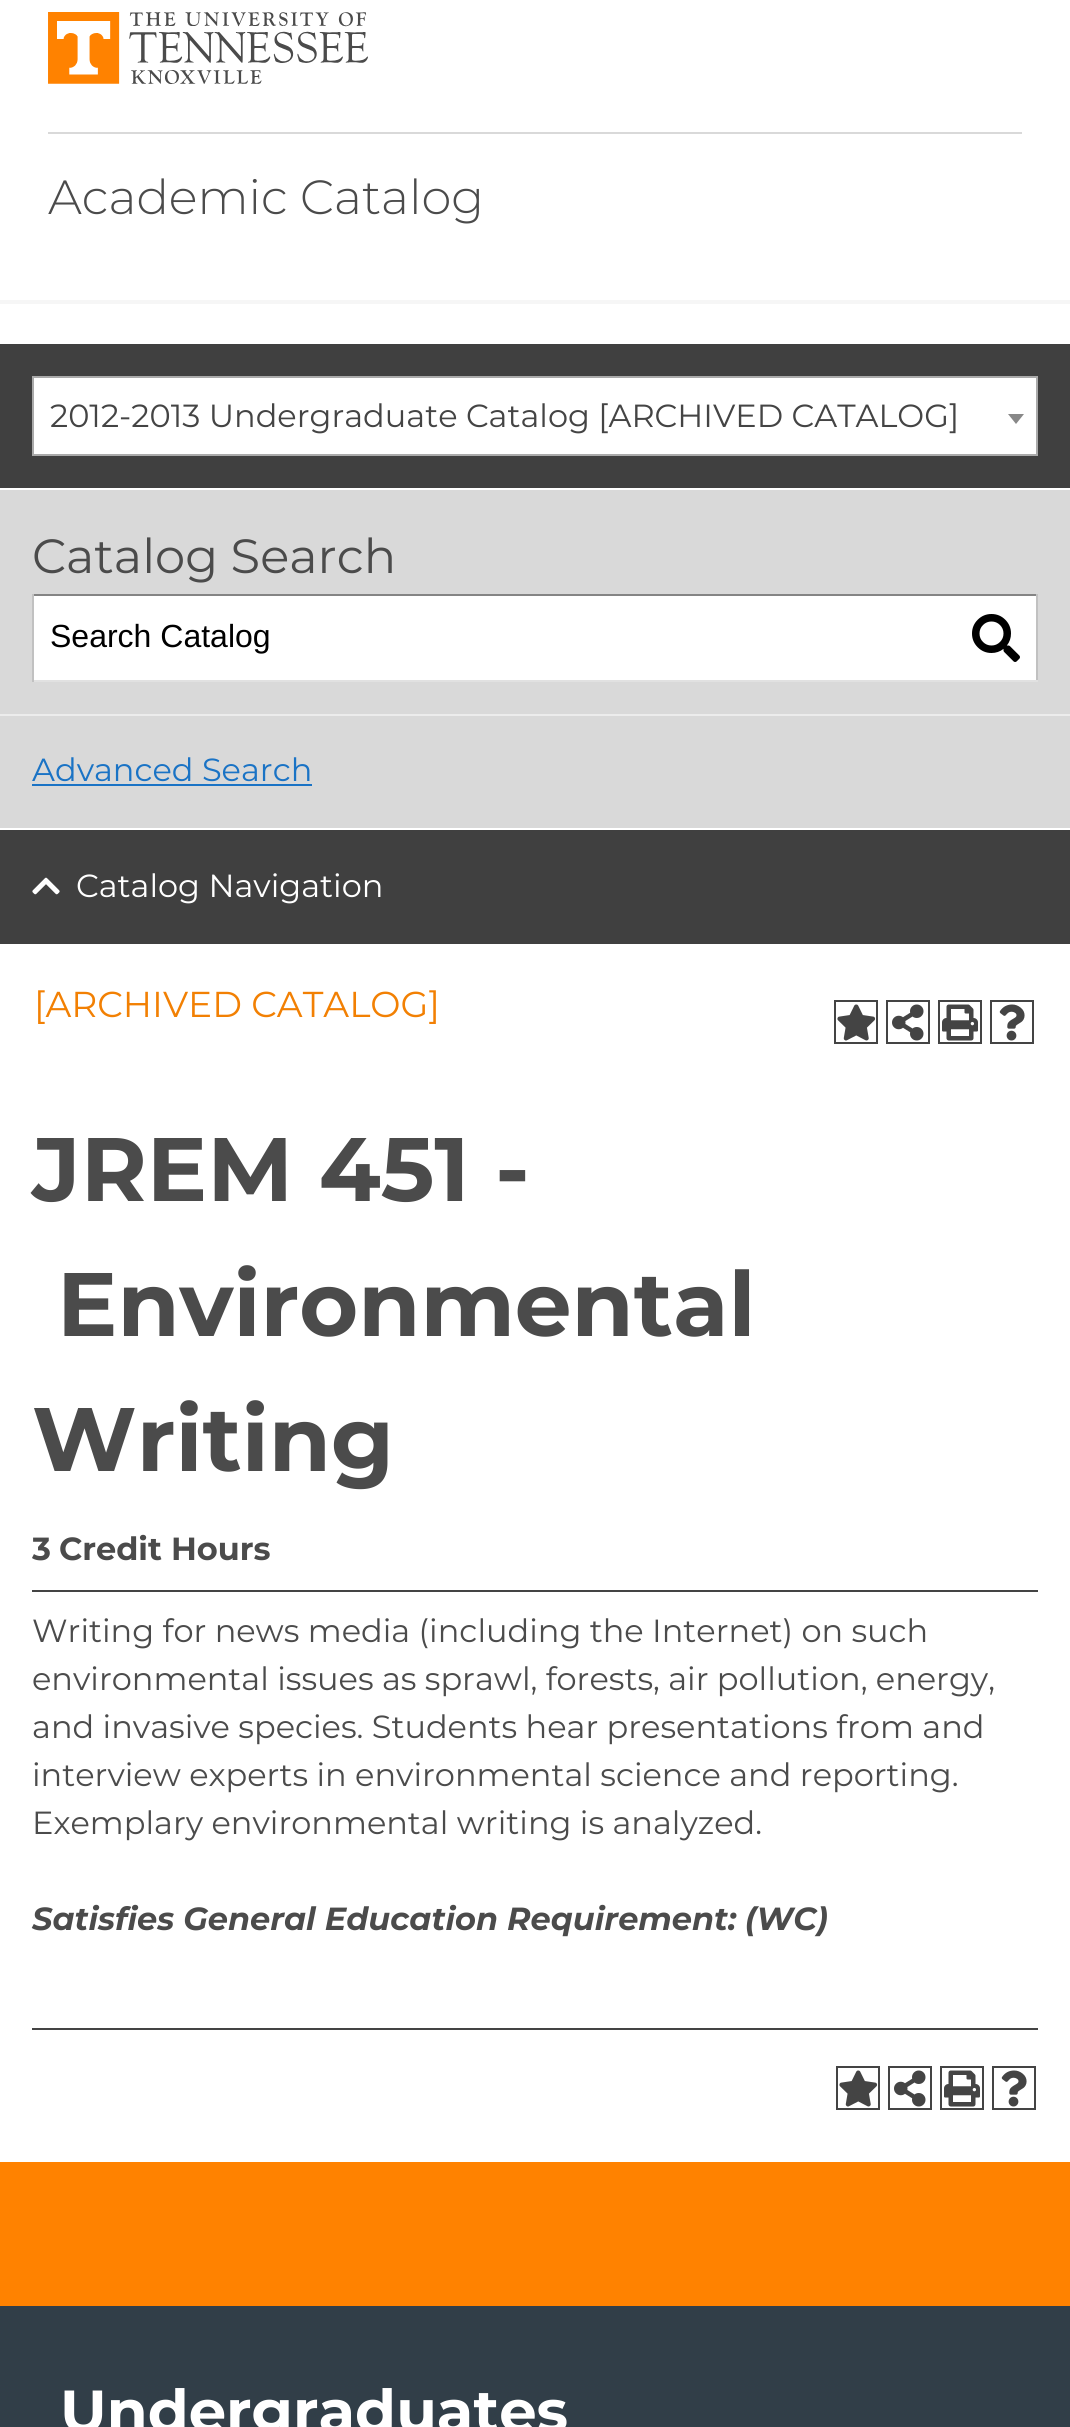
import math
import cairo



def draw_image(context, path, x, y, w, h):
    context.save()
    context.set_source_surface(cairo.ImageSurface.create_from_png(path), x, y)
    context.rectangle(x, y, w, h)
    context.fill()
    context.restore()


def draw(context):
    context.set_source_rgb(1, 1, 1)
    context.paint()
    draw_image(context, "images/1.png", 48, 12, 320, 72)
    context.set_source_rgb(217 / 255, 217 / 255, 217 / 255)
    context.rectangle(48, 132, 974, 2)
    context.fill()
    context.set_source_rgb(246 / 255, 246 / 255, 246 / 255)
    context.rectangle(0, 300, 1070, 4)
    context.fill()
    context.set_source_rgb(64 / 255, 64 / 255, 64 / 255)
    context.rectangle(0, 344, 1070, 144)
    context.fill()
    context.set_source_rgb(1, 1, 1)
    context.rectangle(33, 377, 1004, 78)
    context.fill_preserve()
    context.set_source_rgb(170 / 255, 170 / 255, 170 / 255)
    context.stroke()
    context.set_source_rgb(136 / 255, 136 / 255, 136 / 255)
    context.new_path()
    context.move_to(1008, 414)
    context.line_to(1024, 414)
    context.line_to(1016, 424)
    context.close_path()
    context.fill()
    context.set_source_rgb(217 / 255, 217 / 255, 217 / 255)
    context.rectangle(0, 490, 1070, 338)
    context.fill()
    context.set_source_rgb(1, 1, 1)
    context.rectangle(34, 596, 1002, 84)
    context.fill()
    context.set_source_rgb(132 / 255, 132 / 255, 132 / 255)
    context.rectangle(32, 594, 1006, 2)
    context.fill()
    context.set_source_rgb(193 / 255, 193 / 255, 193 / 255)
    context.rectangle(1036, 594, 2, 88)
    context.fill()
    context.set_source_rgb(225 / 255, 225 / 255, 225 / 255)
    context.rectangle(32, 680, 1006, 2)
    context.fill()
    context.set_source_rgb(193 / 255, 193 / 255, 193 / 255)
    context.rectangle(32, 594, 2, 88)
    context.fill()
    draw_image(context, "images/2.png", 972, 614, 48, 48)
    context.set_source_rgb(236 / 255, 236 / 255, 236 / 255)
    context.rectangle(0, 714, 1070, 2)
    context.fill()
    context.set_source_rgb(26 / 255, 115 / 255, 197 / 255)
    context.rectangle(32, 784, 280, 2)
    context.fill()
    context.set_source_rgb(64 / 255, 64 / 255, 64 / 255)
    context.rectangle(0, 830, 1070, 114)
    context.fill()
    draw_image(context, "images/3.png", 32, 877, 28, 18)
    context.rectangle(835, 1001, 42, 42)
    context.set_source_rgb(68 / 255, 68 / 255, 68 / 255)
    context.stroke()
    draw_image(context, "images/4.png", 837, 1004, 39, 37)
    context.rectangle(887, 1001, 42, 42)
    context.stroke()
    draw_image(context, "images/5.png", 892, 1004, 32, 37)
    context.rectangle(939, 1001, 42, 42)
    context.stroke()
    draw_image(context, "images/6.png", 942, 1004, 36, 37)
    context.rectangle(991, 1001, 42, 42)
    context.stroke()
    draw_image(context, "images/7.png", 999, 1004, 26, 37)
    context.rectangle(32, 1590, 1006, 2)
    context.fill()
    context.rectangle(32, 2028, 1006, 2)
    context.fill()
    context.rectangle(837, 2067, 42, 42)
    context.stroke()
    draw_image(context, "images/4.png", 839, 2070, 39, 37)
    context.rectangle(889, 2067, 42, 42)
    context.stroke()
    draw_image(context, "images/5.png", 894, 2070, 32, 37)
    context.rectangle(941, 2067, 42, 42)
    context.stroke()
    draw_image(context, "images/6.png", 944, 2070, 36, 37)
    context.rectangle(993, 2067, 42, 42)
    context.stroke()
    draw_image(context, "images/7.png", 1001, 2070, 26, 37)
    context.set_source_rgb(1, 130 / 255, 0)
    context.rectangle(0, 2162, 1070, 144)
    context.fill()
    context.set_source_rgb(49 / 255, 62 / 255, 72 / 255)
    context.rectangle(0, 2306, 1070, 121)
    context.fill()
    context.select_font_face("Montserrat Light")
    context.set_font_size(48)
    context.set_source_rgb(75 / 255, 75 / 255, 75 / 255)
    context.move_to(48, 214)
    context.show_text("Academic Catalog")
    context.select_font_face("Montserrat")
    context.set_font_size(32)
    context.set_source_rgb(68 / 255, 68 / 255, 68 / 255)
    context.move_to(50, 427)
    context.show_text("2012-2013 Undergraduate Catalog [ARCHIVED CATALOG]")
    context.set_font_size(48)
    context.set_source_rgb(75 / 255, 75 / 255, 75 / 255)
    context.move_to(32, 573)
    context.show_text("Catalog Search")
    context.select_font_face("Liberation Sans")
    context.set_font_size(32)
    context.set_source_rgb(0, 0, 0)
    context.move_to(50, 647)
    context.show_text("Search Catalog")
    context.select_font_face("Montserrat")
    context.set_source_rgb(26 / 255, 115 / 255, 197 / 255)
    context.move_to(32, 781)
    context.show_text("Advanced Search")
    context.set_source_rgb(1, 1, 1)
    context.move_to(76, 897)
    context.show_text("Catalog Navigation")
    context.set_font_size(36)
    context.set_source_rgb(242 / 255, 128 / 255, 3 / 255)
    context.move_to(34, 1017)
    context.show_text("[ARCHIVED CATALOG]")
    context.select_font_face("Montserrat", cairo.FontSlant.NORMAL, cairo.FontWeight.BOLD)
    context.set_font_size(90)
    context.set_source_rgb(75 / 255, 75 / 255, 75 / 255)
    context.move_to(32, 1201)
    context.show_text("JREM 451 -")
    context.move_to(57, 1336)
    context.show_text("Environmental")
    context.move_to(32, 1471)
    context.show_text("Writing")
    context.set_font_size(32)
    context.move_to(32, 1560)
    context.show_text("3")
    context.move_to(59, 1560)
    context.show_text("Credit Hours")
    context.select_font_face("Montserrat")
    context.move_to(32, 1642)
    context.show_text("Writing for news media (including the Internet) on such")
    context.move_to(32, 1690)
    context.show_text("environmental issues as sprawl, forests, air pollution, energy,")
    context.move_to(32, 1738)
    context.show_text("and invasive species. Students hear presentations from and")
    context.move_to(32, 1786)
    context.show_text("interview experts in environmental science and reporting.")
    context.move_to(32, 1834)
    context.show_text("Exemplary environmental writing is analyzed.")
    context.select_font_face("Montserrat", cairo.FontSlant.ITALIC, cairo.FontWeight.BOLD)
    context.move_to(32, 1930)
    context.show_text("Satisfies General Education Requirement:")
    context.move_to(745, 1930)
    context.show_text("(WC)")
    context.select_font_face("Montserrat", cairo.FontSlant.NORMAL, cairo.FontWeight.BOLD)
    context.set_font_size(59.25)
    context.set_source_rgb(1, 1, 1)
    context.move_to(60, 2432)
    context.show_text("Undergraduates")


surface = cairo.ImageSurface(cairo.Format.RGB24, 1070, 2427)
context = cairo.Context(surface)
options = cairo.FontOptions()
options.set_hint_metrics(cairo.HintMetrics.OFF)
options.set_hint_style(cairo.HintStyle.NONE)
context.set_font_options(options)
context.set_miter_limit(4)
draw(context)
surface.write_to_png("out.png")
